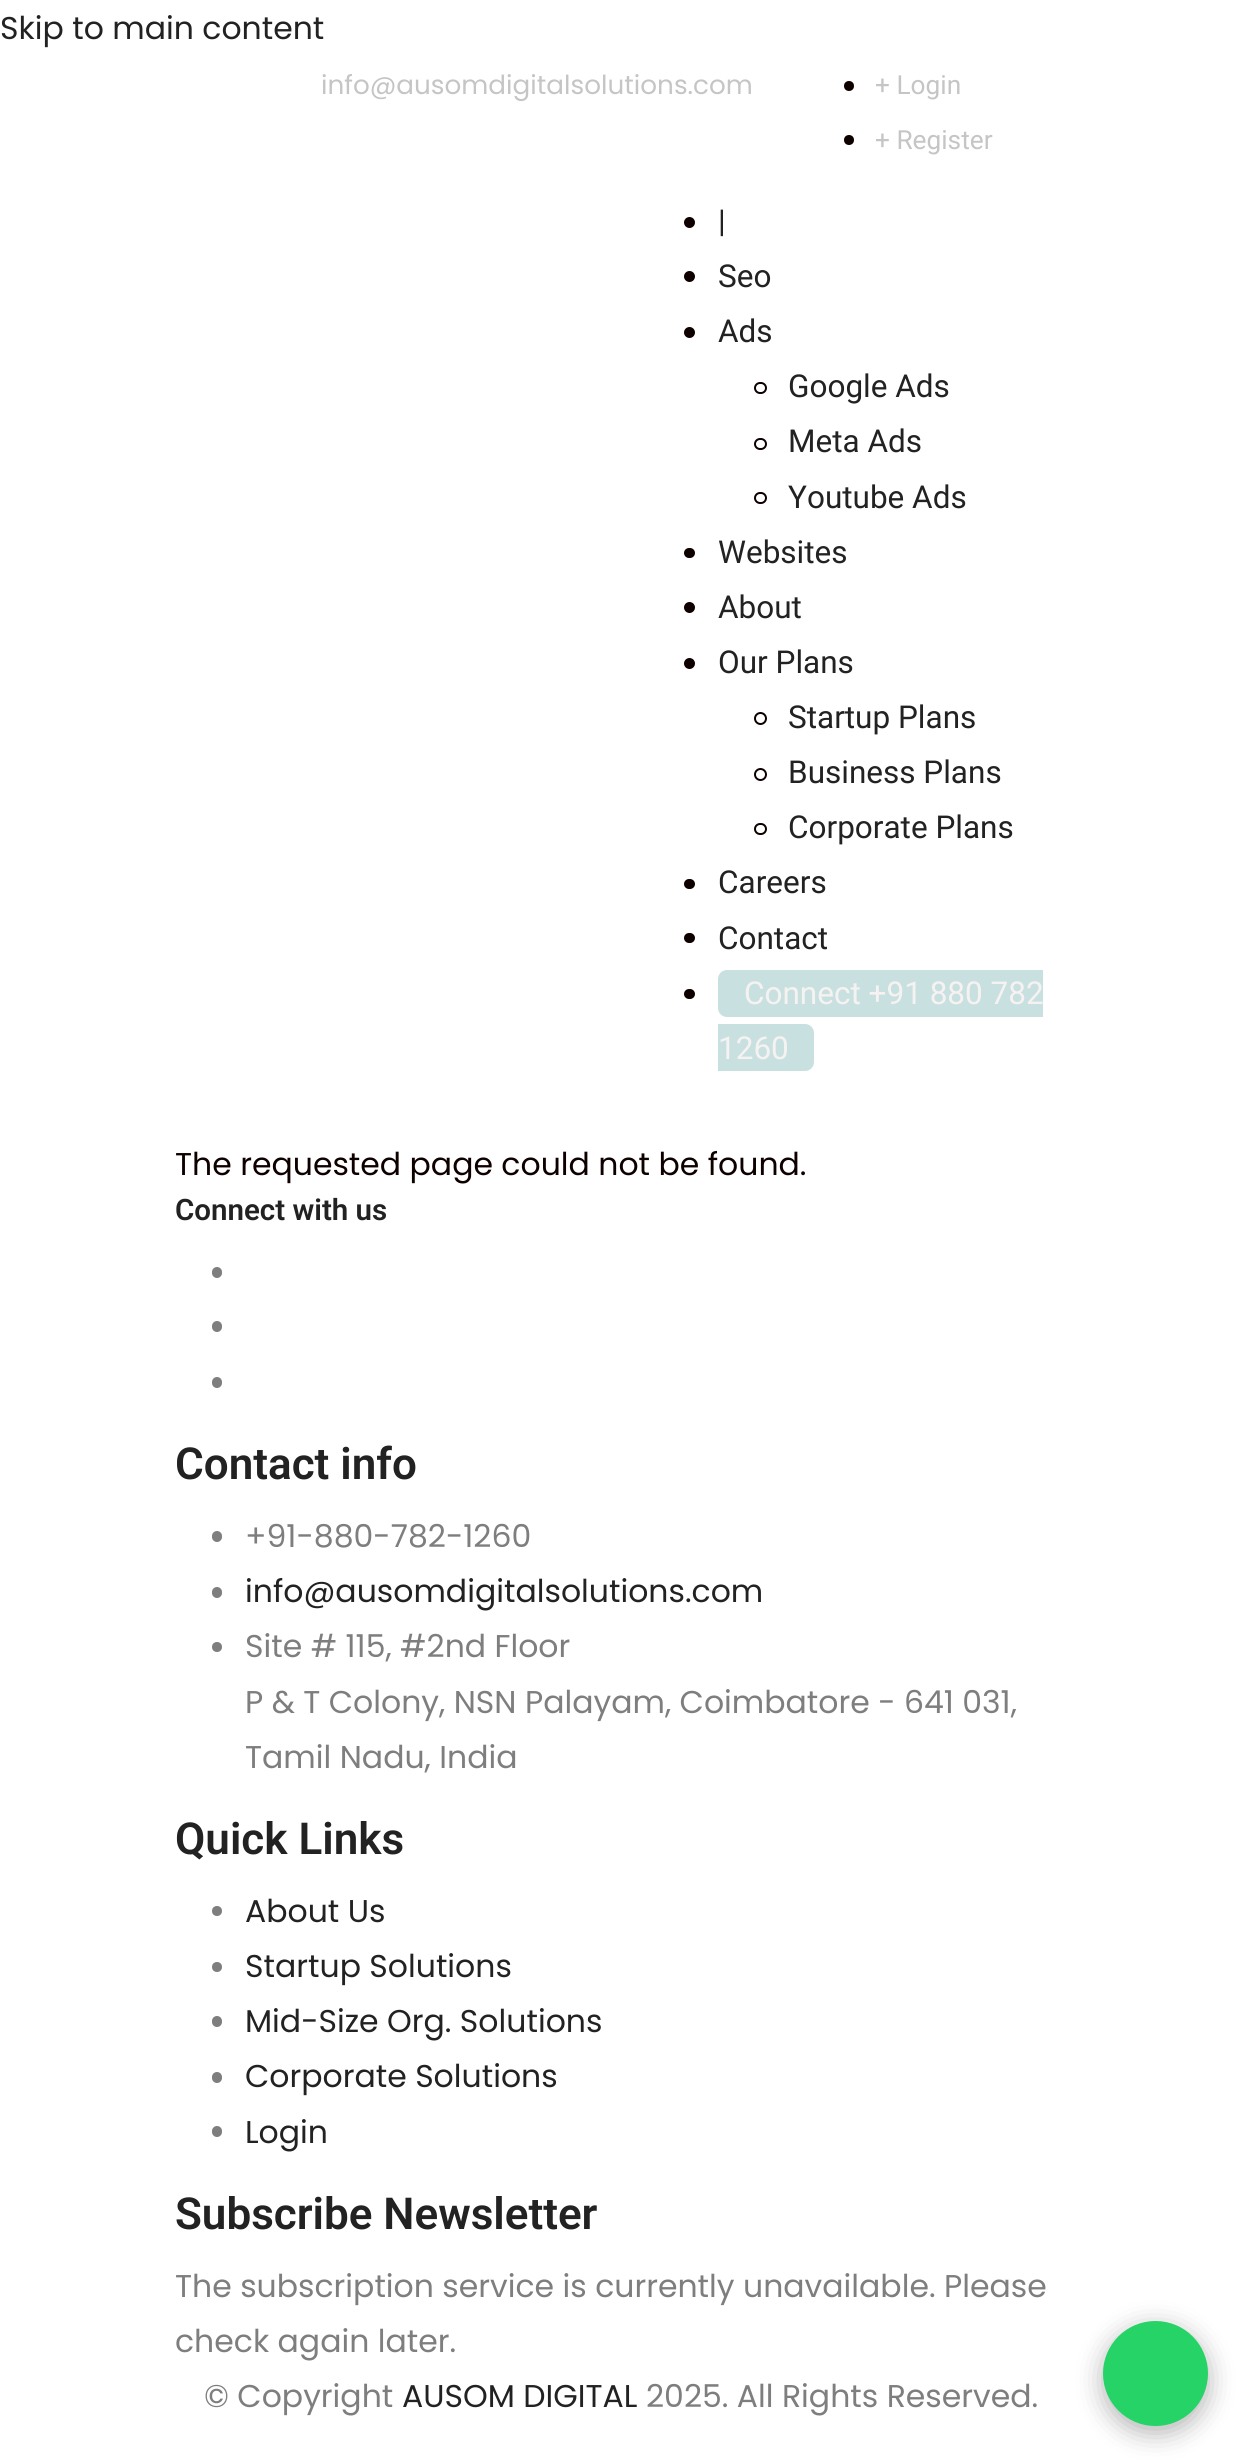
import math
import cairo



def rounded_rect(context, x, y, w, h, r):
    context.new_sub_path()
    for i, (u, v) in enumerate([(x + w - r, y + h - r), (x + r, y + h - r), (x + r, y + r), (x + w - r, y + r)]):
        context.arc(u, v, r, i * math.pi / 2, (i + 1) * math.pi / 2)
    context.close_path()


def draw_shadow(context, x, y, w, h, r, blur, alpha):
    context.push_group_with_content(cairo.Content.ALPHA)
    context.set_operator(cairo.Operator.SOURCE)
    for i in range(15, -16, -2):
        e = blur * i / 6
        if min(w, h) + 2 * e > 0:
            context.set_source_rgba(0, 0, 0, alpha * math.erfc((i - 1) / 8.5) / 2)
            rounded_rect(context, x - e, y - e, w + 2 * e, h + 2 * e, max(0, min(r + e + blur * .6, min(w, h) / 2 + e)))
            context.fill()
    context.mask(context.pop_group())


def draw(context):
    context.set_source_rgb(1, 1, 1)
    context.paint()
    context.set_source_rgb(15 / 255, 0, 0)
    context.arc(849, 86, 5, 0, 2 * math.pi)
    context.fill()
    context.arc(849, 140, 5, 0, 2 * math.pi)
    context.fill()
    context.arc(689.5, 222.5, 5.5, 0, 2 * math.pi)
    context.fill()
    context.arc(689.5, 276.5, 5.5, 0, 2 * math.pi)
    context.fill()
    context.arc(689.5, 332.5, 5.5, 0, 2 * math.pi)
    context.fill()
    rounded_rect(context, 755, 383, 11, 10, 5)
    context.stroke()
    rounded_rect(context, 755, 439, 11, 10, 5)
    context.stroke()
    rounded_rect(context, 755, 493, 11, 10, 5)
    context.stroke()
    rounded_rect(context, 684, 548, 11, 10, 5)
    context.fill()
    context.arc(689.5, 607.5, 5.5, 0, 2 * math.pi)
    context.fill()
    context.arc(689.5, 663.5, 5.5, 0, 2 * math.pi)
    context.fill()
    context.arc(760.5, 718.5, 5.5, 0, 2 * math.pi)
    context.stroke()
    context.arc(760.5, 774.5, 5.5, 0, 2 * math.pi)
    context.stroke()
    rounded_rect(context, 755, 824, 11, 10, 5)
    context.stroke()
    rounded_rect(context, 684, 879, 11, 10, 5)
    context.fill()
    rounded_rect(context, 684, 933, 11, 10, 5)
    context.fill()
    rounded_rect(context, 684, 989, 11, 10, 5)
    context.fill()
    context.set_source_rgb(200 / 255, 225 / 255, 224 / 255)
    context.new_path()
    context.move_to(727, 970)
    context.line_to(1043, 970)
    context.line_to(1043, 1017)
    context.line_to(727, 1017)
    context.curve_to(722, 1017, 718, 1013, 718, 1008)
    context.line_to(718, 979)
    context.curve_to(718, 974, 722, 970, 727, 970)
    context.close_path()
    context.fill()
    context.new_path()
    context.move_to(718, 1024)
    context.line_to(805, 1024)
    context.curve_to(810, 1024, 814, 1028, 814, 1033)
    context.line_to(814, 1062)
    context.curve_to(814, 1067, 810, 1071, 805, 1071)
    context.line_to(718, 1071)
    context.close_path()
    context.fill()
    context.set_source_rgb(126 / 255, 126 / 255, 126 / 255)
    rounded_rect(context, 212, 1267, 10, 11, 5)
    context.fill()
    rounded_rect(context, 212, 1321, 10, 11, 5)
    context.fill()
    rounded_rect(context, 212, 1377, 10, 11, 5)
    context.fill()
    context.set_source_rgb(0, 0, 0)
    draw_shadow(context, 1103, 2328, 105, 105, 52.5, 13, 0.3)
    context.set_source_rgb(37 / 255, 211 / 255, 102 / 255)
    context.arc(1155.5, 2373.5, 52.5, 0, 2 * math.pi)
    context.fill()
    context.set_source_rgb(126 / 255, 126 / 255, 126 / 255)
    rounded_rect(context, 212, 1531, 10, 11, 5)
    context.fill()
    rounded_rect(context, 212, 1587, 10, 11, 5)
    context.fill()
    context.arc(217, 1647, 5, 0, 2 * math.pi)
    context.fill()
    context.arc(217, 1911, 5, 0, 2 * math.pi)
    context.fill()
    context.arc(217, 1967, 5, 0, 2 * math.pi)
    context.fill()
    rounded_rect(context, 212, 2016, 10, 11, 5)
    context.fill()
    rounded_rect(context, 212, 2072, 10, 11, 5)
    context.fill()
    rounded_rect(context, 212, 2126, 10, 11, 5)
    context.fill()
    context.select_font_face("Poppins")
    context.set_font_size(31.5)
    context.set_source_rgb(34 / 255, 34 / 255, 34 / 255)
    context.move_to(0, 39)
    context.show_text("Skip to main content")
    context.set_font_size(26.25)
    context.set_source_rgb(197 / 255, 197 / 255, 197 / 255)
    context.move_to(321, 94)
    context.show_text("info@ausomdigitalsolutions.com")
    context.select_font_face("Roboto")
    context.move_to(875, 94)
    context.show_text("+ Login")
    context.move_to(875, 149)
    context.show_text("+ Register")
    context.set_font_size(31.5)
    context.set_source_rgb(34 / 255, 34 / 255, 34 / 255)
    context.move_to(718, 232)
    context.show_text("|")
    context.move_to(718, 287)
    context.show_text("Seo")
    context.move_to(718, 342)
    context.show_text("Ads")
    context.move_to(788, 397)
    context.show_text("Google Ads")
    context.move_to(788, 452)
    context.show_text("Meta Ads")
    context.move_to(788, 508)
    context.show_text("Youtube Ads")
    context.move_to(718, 563)
    context.show_text("Websites")
    context.move_to(718, 618)
    context.show_text("About")
    context.move_to(718, 673)
    context.show_text("Our Plans")
    context.move_to(788, 728)
    context.show_text("Startup Plans")
    context.move_to(788, 783)
    context.show_text("Business Plans")
    context.move_to(788, 838)
    context.show_text("Corporate Plans")
    context.move_to(718, 893)
    context.show_text("Careers")
    context.move_to(718, 949)
    context.show_text("Contact")
    context.set_source_rgb(247 / 255, 242 / 255, 242 / 255)
    context.move_to(744, 1004)
    context.show_text("Connect +91 880 782")
    context.move_to(718, 1059)
    context.show_text("1260")
    context.select_font_face("Poppins")
    context.set_source_rgb(15 / 255, 0, 0)
    context.move_to(175, 1175)
    context.show_text("The requested page could not be found.")
    context.select_font_face("Roboto SemiBold")
    context.set_font_size(29.5)
    context.set_source_rgb(34 / 255, 34 / 255, 34 / 255)
    context.move_to(175, 1220)
    context.show_text("Connect with us")
    context.set_font_size(44)
    context.move_to(175, 1479)
    context.show_text("Contact info")
    context.select_font_face("Poppins")
    context.set_font_size(31.5)
    context.set_source_rgb(126 / 255, 126 / 255, 126 / 255)
    context.move_to(245, 1547)
    context.show_text("+91-880-782-1260")
    context.set_source_rgb(34 / 255, 34 / 255, 34 / 255)
    context.move_to(245, 1602)
    context.show_text("info@ausomdigitalsolutions.com")
    context.set_source_rgb(126 / 255, 126 / 255, 126 / 255)
    context.move_to(245, 1657)
    context.show_text("Site # 115, #2nd Floor")
    context.move_to(245, 1713)
    context.show_text("P & T Colony, NSN Palayam, Coimbatore - 641 031,")
    context.move_to(245, 1768)
    context.show_text("Tamil Nadu, India")
    context.select_font_face("Roboto SemiBold")
    context.set_font_size(44)
    context.set_source_rgb(34 / 255, 34 / 255, 34 / 255)
    context.move_to(175, 1854)
    context.show_text("Quick Links")
    context.select_font_face("Poppins")
    context.set_font_size(31.5)
    context.move_to(245, 1922)
    context.show_text("About Us")
    context.move_to(245, 1977)
    context.show_text("Startup Solutions")
    context.move_to(245, 2032)
    context.show_text("Mid-Size Org. Solutions")
    context.move_to(245, 2087)
    context.show_text("Corporate Solutions")
    context.move_to(245, 2143)
    context.show_text("Login")
    context.select_font_face("Roboto SemiBold")
    context.set_font_size(44)
    context.move_to(175, 2229)
    context.show_text("Subscribe Newsletter")
    context.select_font_face("Poppins")
    context.set_font_size(31.5)
    context.set_source_rgb(126 / 255, 126 / 255, 126 / 255)
    context.move_to(175, 2297)
    context.show_text("The subscription service is currently unavailable. Please")
    context.move_to(175, 2352)
    context.show_text("check again later.")
    context.move_to(204, 2407)
    context.show_text("© Copyright")
    context.set_source_rgb(34 / 255, 34 / 255, 34 / 255)
    context.move_to(402, 2407)
    context.show_text("AUSOM DIGITAL")
    context.set_source_rgb(126 / 255, 126 / 255, 126 / 255)
    context.move_to(646, 2407)
    context.show_text("2025. All Rights Reserved.")


surface = cairo.ImageSurface(cairo.Format.RGB24, 1242, 2460)
context = cairo.Context(surface)
options = cairo.FontOptions()
options.set_hint_metrics(cairo.HintMetrics.OFF)
options.set_hint_style(cairo.HintStyle.NONE)
context.set_font_options(options)
context.set_miter_limit(4)
draw(context)
surface.write_to_png("out.png")
